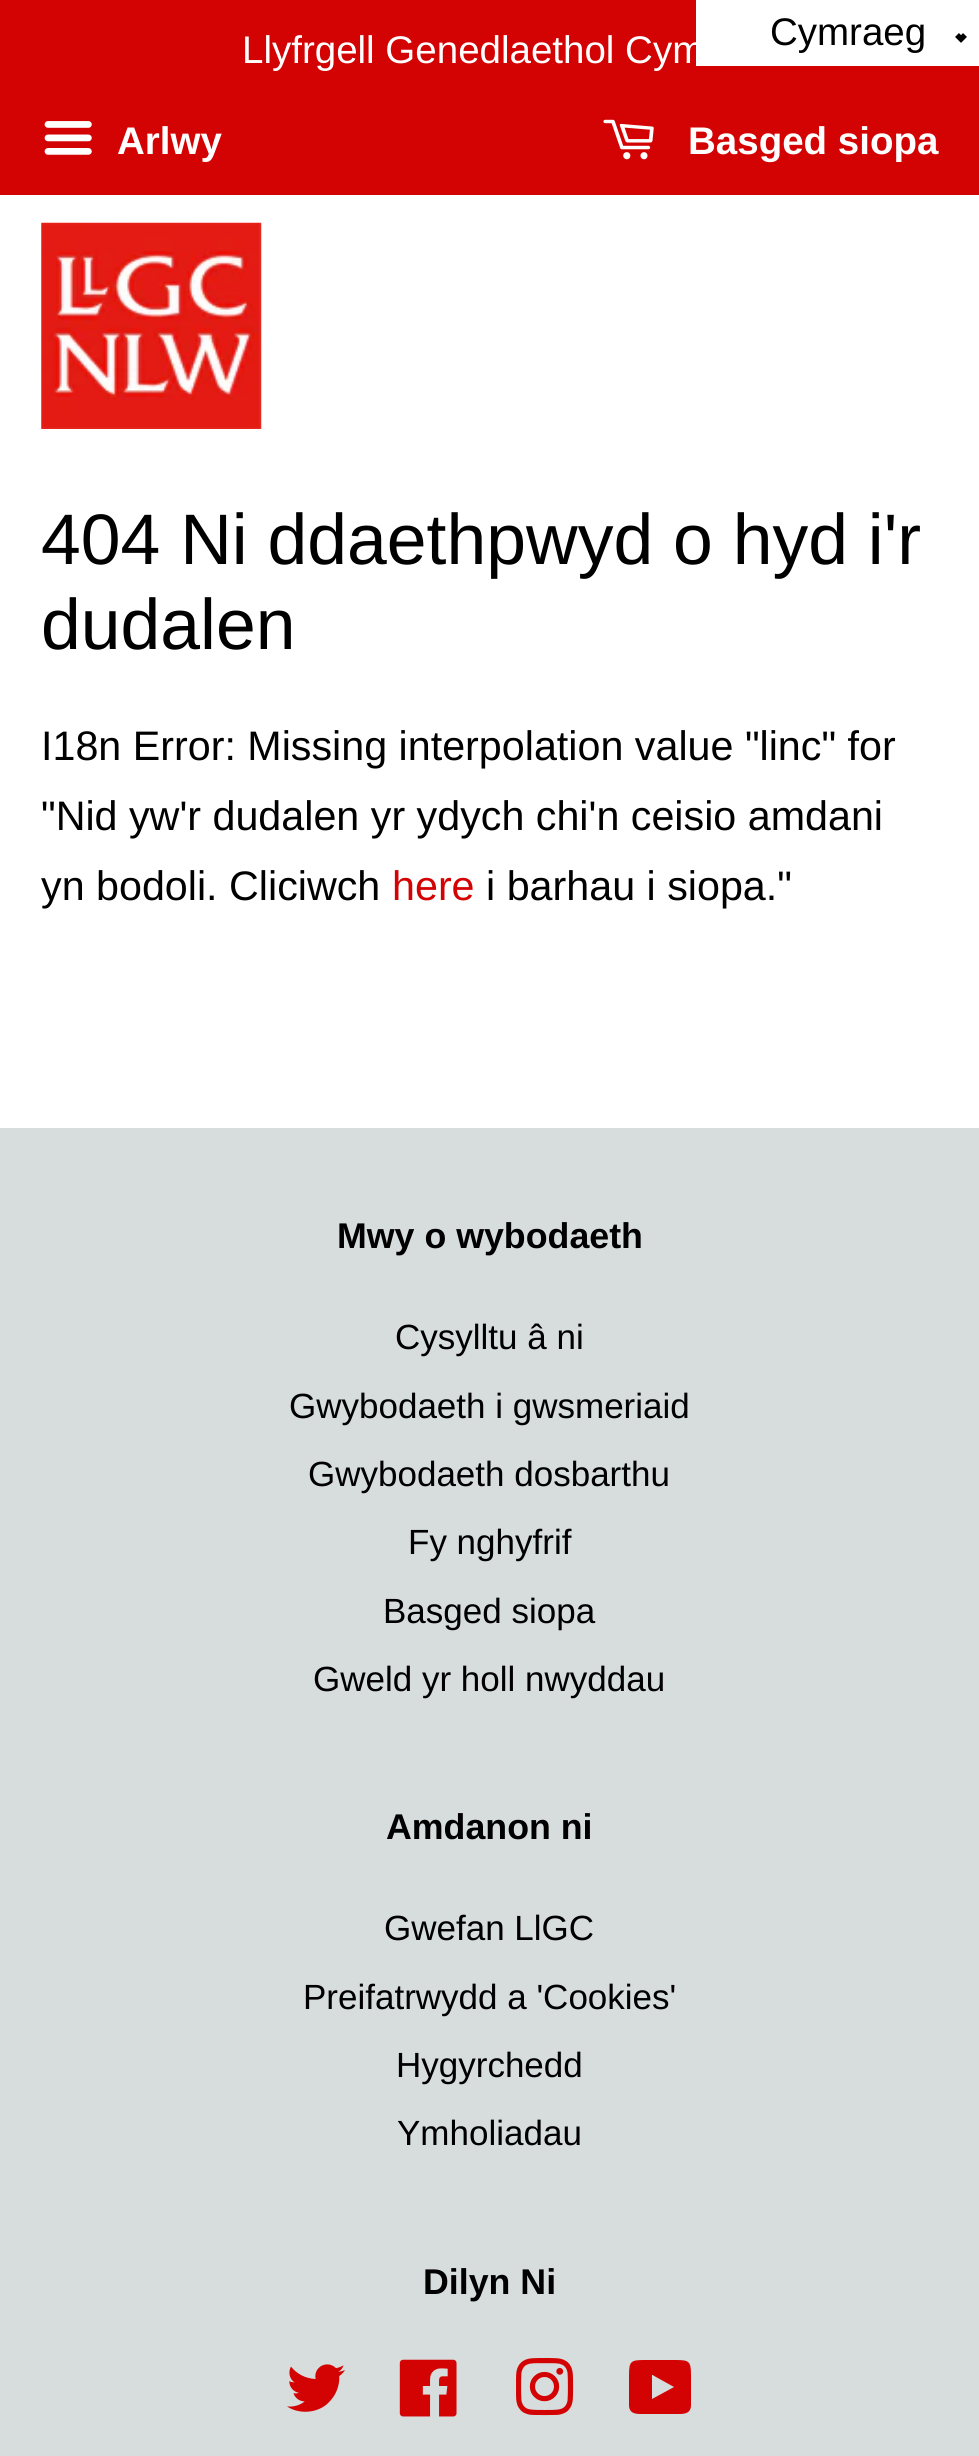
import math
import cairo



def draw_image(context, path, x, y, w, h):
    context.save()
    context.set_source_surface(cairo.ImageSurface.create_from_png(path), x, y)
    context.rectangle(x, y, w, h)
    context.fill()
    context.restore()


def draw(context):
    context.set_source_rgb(1, 1, 1)
    context.paint()
    context.set_source_rgb(212 / 255, 3 / 255, 3 / 255)
    context.rectangle(0, 0, 979, 195)
    context.fill()
    context.set_source_rgb(1, 1, 1)
    context.rectangle(696, 0, 283, 66)
    context.fill()
    context.new_path()
    context.move_to(957, 35)
    context.line_to(961, 39)
    context.line_to(965, 35)
    context.set_source_rgb(0, 0, 0)
    context.set_line_width(5.5)
    context.stroke()
    draw_image(context, "images/1.png", 44, 121, 48, 34)
    draw_image(context, "images/2.png", 603, 119, 51, 41)
    draw_image(context, "images/3.png", 41, 222, 221, 207)
    context.set_source_rgb(215 / 255, 220 / 255, 220 / 255)
    context.rectangle(0, 1128, 979, 1328)
    context.fill()
    draw_image(context, "images/4.png", 287, 2364, 58, 48)
    draw_image(context, "images/5.png", 399, 2359, 58, 58)
    draw_image(context, "images/6.png", 516, 2358, 58, 58)
    context.set_source_rgb(212 / 255, 3 / 255, 3 / 255)
    context.new_path()
    context.move_to(629, 2405)
    context.curve_to(629, 2415, 638, 2414, 645, 2414)
    context.line_to(675, 2414)
    context.curve_to(682, 2414, 691, 2415, 691, 2405)
    context.line_to(691, 2375)
    context.curve_to(691, 2361, 689, 2360, 675, 2360)
    context.line_to(645, 2360)
    context.curve_to(631, 2360, 629, 2361, 629, 2375)
    context.close_path()
    context.move_to(652, 2399)
    context.line_to(652, 2379)
    context.curve_to(652, 2374, 651, 2374, 656, 2377)
    context.line_to(674, 2387)
    context.close_path()
    context.fill()
    context.select_font_face("Liberation Sans")
    context.set_font_size(38.5)
    context.set_source_rgb(0, 0, 0)
    context.move_to(770, 45)
    context.show_text("Cymraeg")
    context.set_source_rgb(1, 1, 1)
    context.move_to(242, 63)
    context.show_text("Llyfrgell Genedlaethol Cym")
    context.select_font_face("Liberation Sans", cairo.FontSlant.NORMAL, cairo.FontWeight.BOLD)
    context.move_to(117, 154)
    context.show_text("Arlwy")
    context.move_to(688, 154)
    context.show_text("Basged siopa")
    context.select_font_face("Liberation Sans")
    context.set_font_size(71.5)
    context.set_source_rgb(0, 0, 0)
    context.move_to(41, 564)
    context.show_text("404 Ni ddaethpwyd o hyd i'r")
    context.move_to(41, 649)
    context.show_text("dudalen")
    context.set_font_size(41.25)
    context.move_to(41, 760)
    context.show_text("I18n Error: Missing interpolation value \"linc\" for")
    context.move_to(41, 830)
    context.show_text("\"Nid yw'r dudalen yr ydych chi'n ceisio amdani")
    context.move_to(41, 900)
    context.show_text("yn bodoli. Cliciwch")
    context.set_source_rgb(212 / 255, 3 / 255, 3 / 255)
    context.move_to(392, 900)
    context.show_text("here")
    context.set_source_rgb(0, 0, 0)
    context.move_to(486, 900)
    context.show_text("i barhau i siopa.\"")
    context.select_font_face("Liberation Sans", cairo.FontSlant.NORMAL, cairo.FontWeight.BOLD)
    context.set_font_size(35.75)
    context.move_to(337, 1248)
    context.show_text("Mwy o wybodaeth")
    context.select_font_face("Liberation Sans")
    context.set_font_size(35)
    context.move_to(395, 1349)
    context.show_text("Cysylltu â ni")
    context.move_to(289, 1418)
    context.show_text("Gwybodaeth i gwsmeriaid")
    context.move_to(308, 1486)
    context.show_text("Gwybodaeth dosbarthu")
    context.move_to(408, 1554)
    context.show_text("Fy nghyfrif")
    context.move_to(383, 1623)
    context.show_text("Basged siopa")
    context.move_to(313, 1691)
    context.show_text("Gweld yr holl nwyddau")
    context.select_font_face("Liberation Sans", cairo.FontSlant.NORMAL, cairo.FontWeight.BOLD)
    context.set_font_size(35.75)
    context.move_to(386, 1839)
    context.show_text("Amdanon ni")
    context.select_font_face("Liberation Sans")
    context.set_font_size(35)
    context.move_to(384, 1940)
    context.show_text("Gwefan LlGC")
    context.move_to(303, 2009)
    context.show_text("Preifatrwydd a 'Cookies'")
    context.move_to(396, 2077)
    context.show_text("Hygyrchedd")
    context.move_to(397, 2145)
    context.show_text("Ymholiadau")
    context.select_font_face("Liberation Sans", cairo.FontSlant.NORMAL, cairo.FontWeight.BOLD)
    context.set_font_size(35.75)
    context.move_to(423, 2294)
    context.show_text("Dilyn Ni")


surface = cairo.ImageSurface(cairo.Format.RGB24, 979, 2456)
context = cairo.Context(surface)
options = cairo.FontOptions()
options.set_hint_metrics(cairo.HintMetrics.OFF)
options.set_hint_style(cairo.HintStyle.NONE)
context.set_font_options(options)
context.set_miter_limit(4)
draw(context)
surface.write_to_png("out.png")
